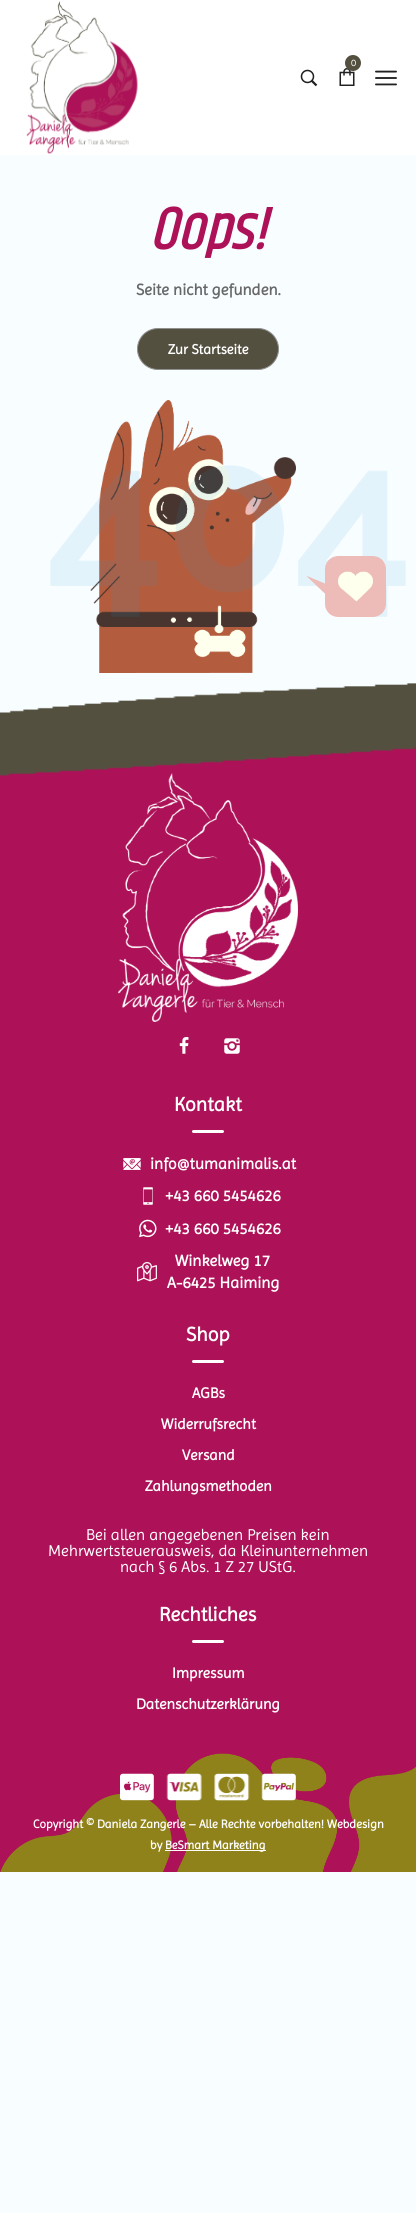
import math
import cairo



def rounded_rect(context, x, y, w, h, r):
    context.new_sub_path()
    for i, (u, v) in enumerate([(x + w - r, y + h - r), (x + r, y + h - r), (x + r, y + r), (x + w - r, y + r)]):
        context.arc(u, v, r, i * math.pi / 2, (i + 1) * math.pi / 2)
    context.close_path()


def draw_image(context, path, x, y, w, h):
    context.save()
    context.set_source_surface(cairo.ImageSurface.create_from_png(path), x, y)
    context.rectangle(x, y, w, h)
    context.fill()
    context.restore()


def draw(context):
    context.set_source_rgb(248 / 255, 253 / 255, 1)
    context.paint()
    context.set_source_rgb(1, 1, 1)
    context.rectangle(0, 0, 416, 155)
    context.fill()
    draw_image(context, "images/1.png", 26, 1, 112, 153)
    draw_image(context, "images/2.png", 339, 68, 16, 18)
    context.set_source_rgb(84 / 255, 80 / 255, 64 / 255)
    context.arc(353, 63, 8, 0, 2 * math.pi)
    context.fill()
    draw_image(context, "images/3.png", 300, 69, 18, 18)
    draw_image(context, "images/4.png", 375, 70, 22, 16)
    rounded_rect(context, 137.5, 328.5, 141, 41, 20.5)
    context.fill_preserve()
    context.set_source_rgb(144 / 255, 144 / 255, 144 / 255)
    context.set_line_width(1)
    context.stroke()
    draw_image(context, "images/5.png", 90, 400, 206, 273)
    draw_image(context, "images/6.png", 50, 465, 356, 152)
    draw_image(context, "images/7.png", 306, 556, 80, 61)
    draw_image(context, "images/8.png", 0, 683, 416, 1189)
    draw_image(context, "images/9.png", 118, 773, 180, 249)
    draw_image(context, "images/10.png", 179, 1037, 10, 17)
    draw_image(context, "images/11.png", 224, 1038, 16, 16)
    context.set_source_rgb(1, 1, 1)
    rounded_rect(context, 192, 1130, 32, 3, 1.5)
    context.fill()
    draw_image(context, "images/12.png", 123, 1158, 18, 12)
    draw_image(context, "images/13.png", 143, 1187, 10, 18)
    draw_image(context, "images/14.png", 139, 1219, 18, 19)
    draw_image(context, "images/15.png", 137, 1262, 20, 20)
    rounded_rect(context, 192, 1360, 32, 3, 1.5)
    context.fill()
    rounded_rect(context, 192, 1640, 32, 3, 1.5)
    context.fill()
    draw_image(context, "images/17.png", 0, 1753, 416, 119)
    draw_image(context, "images/16.png", 120, 1773, 176, 28)
    context.rectangle(165, 1850, 101, 1)
    context.fill()
    context.select_font_face("Imprima")
    context.set_font_size(10)
    context.move_to(351, 66)
    context.show_text("0")
    context.select_font_face("Khand", cairo.FontSlant.ITALIC, cairo.FontWeight.BOLD)
    context.set_font_size(60)
    context.set_source_rgb(173 / 255, 18 / 255, 88 / 255)
    context.move_to(149, 249)
    context.show_text("Oops!")
    context.select_font_face("Imprima", cairo.FontSlant.NORMAL, cairo.FontWeight.BOLD)
    context.set_font_size(16)
    context.set_source_rgb(104 / 255, 104 / 255, 104 / 255)
    context.move_to(136, 295)
    context.show_text("Seite nicht gefunden.")
    context.set_font_size(14)
    context.set_source_rgb(1, 1, 1)
    context.move_to(168, 354)
    context.show_text("Zur Startseite")
    context.set_font_size(20)
    context.move_to(174, 1111)
    context.show_text("Kontakt")
    context.set_font_size(16)
    context.move_to(150, 1169)
    context.show_text("info@tumanimalis.at")
    context.move_to(165, 1201)
    context.show_text("+43 660 5454626")
    context.move_to(165, 1234)
    context.show_text("+43 660 5454626")
    context.move_to(175, 1266)
    context.show_text("Winkelweg 17")
    context.move_to(167, 1288)
    context.show_text("A-6425 Haiming")
    context.set_font_size(20)
    context.move_to(186, 1341)
    context.show_text("Shop")
    context.set_font_size(15)
    context.move_to(192, 1398)
    context.show_text("AGBs")
    context.move_to(161, 1429)
    context.show_text("Widerrufsrecht")
    context.move_to(182, 1460)
    context.show_text("Versand")
    context.move_to(145, 1491)
    context.show_text("Zahlungsmethoden")
    context.select_font_face("Imprima")
    context.set_font_size(16)
    context.move_to(86, 1540)
    context.show_text("Bei allen angegebenen Preisen kein")
    context.move_to(48, 1556)
    context.show_text("Mehrwertsteuerausweis, da Kleinunternehmen")
    context.move_to(120, 1572)
    context.show_text("nach § 6 Abs. 1 Z 27 UStG.")
    context.select_font_face("Imprima", cairo.FontSlant.NORMAL, cairo.FontWeight.BOLD)
    context.set_font_size(20)
    context.move_to(159, 1621)
    context.show_text("Rechtliches")
    context.set_font_size(15)
    context.move_to(172, 1678)
    context.show_text("Impressum")
    context.move_to(136, 1709)
    context.show_text("Datenschutzerklärung")
    context.set_font_size(12)
    context.move_to(33, 1828)
    context.show_text("Copyright © Daniela Zangerle – Alle Rechte vorbehalten! Webdesign")
    context.move_to(150, 1849)
    context.show_text("by")
    context.move_to(165, 1849)
    context.show_text("BeSmart Marketing")


surface = cairo.ImageSurface(cairo.Format.RGB24, 416, 2213)
context = cairo.Context(surface)
options = cairo.FontOptions()
options.set_hint_metrics(cairo.HintMetrics.OFF)
options.set_hint_style(cairo.HintStyle.NONE)
context.set_font_options(options)
context.set_miter_limit(4)
draw(context)
surface.write_to_png("out.png")
